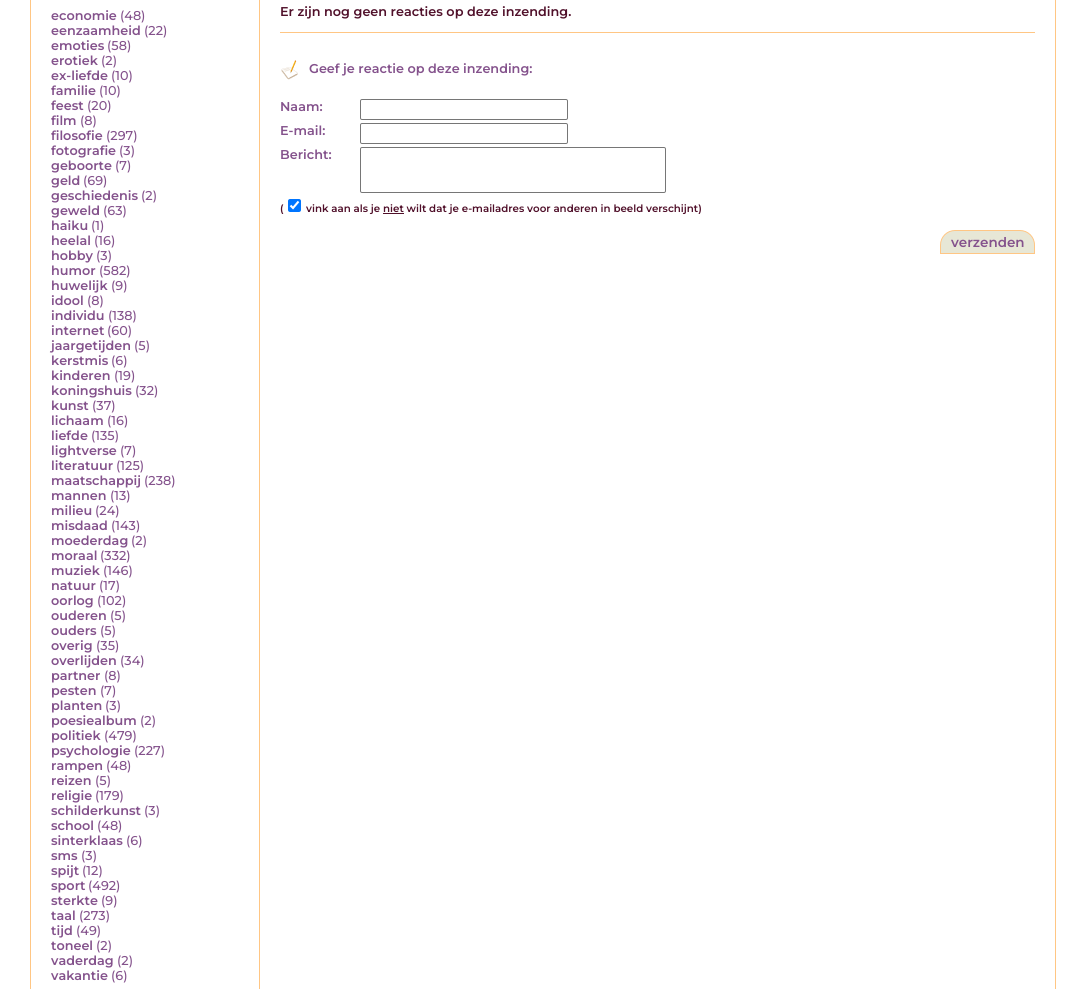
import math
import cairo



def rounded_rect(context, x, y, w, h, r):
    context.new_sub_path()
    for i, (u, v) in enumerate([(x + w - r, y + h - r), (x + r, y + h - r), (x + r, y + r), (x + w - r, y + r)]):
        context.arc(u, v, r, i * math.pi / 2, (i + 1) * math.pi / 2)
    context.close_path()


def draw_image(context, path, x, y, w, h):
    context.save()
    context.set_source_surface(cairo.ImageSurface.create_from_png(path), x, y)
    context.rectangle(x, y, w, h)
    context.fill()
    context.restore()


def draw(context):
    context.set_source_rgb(1, 1, 1)
    context.paint()
    context.set_source_rgb(1, 198 / 255, 132 / 255)
    context.rectangle(1055, 0, 1, 989)
    context.fill()
    context.rectangle(30, 0, 1, 989)
    context.fill()
    context.rectangle(259, 0, 1, 989)
    context.fill()
    context.rectangle(280, 32, 755, 1)
    context.fill()
    draw_image(context, "images/1.png", 281, 60, 17, 20)
    rounded_rect(context, 360.5, 99.5, 207, 20, 1.5)
    context.set_source_rgb(118 / 255, 118 / 255, 118 / 255)
    context.set_line_width(1)
    context.stroke()
    rounded_rect(context, 360.5, 123.5, 207, 20, 1.5)
    context.stroke()
    rounded_rect(context, 360.5, 147.5, 305, 45, 1.5)
    context.stroke()
    context.set_source_rgb(0, 117 / 255, 1)
    rounded_rect(context, 288, 199, 13, 13, 2)
    context.fill()
    context.new_path()
    context.move_to(290.5, 205.5)
    context.line_to(293, 208)
    context.line_to(298.5, 201.5)
    context.set_source_rgb(1, 1, 1)
    context.set_line_width(2.1)
    context.stroke()
    context.set_source_rgb(80 / 255, 16 / 255, 42 / 255)
    context.rectangle(383, 213, 21, 1)
    context.fill()
    context.set_source_rgb(231 / 255, 231 / 255, 214 / 255)
    context.new_path()
    context.move_to(955, 230.5)
    context.line_to(1020, 230.5)
    context.curve_to(1028, 230.5, 1034.5, 237, 1034.5, 245)
    context.line_to(1034.5, 253.5)
    context.line_to(940.5, 253.5)
    context.line_to(940.5, 245)
    context.curve_to(940.5, 237, 947, 230.5, 955, 230.5)
    context.close_path()
    context.fill_preserve()
    context.set_source_rgb(1, 198 / 255, 132 / 255)
    context.set_line_width(1)
    context.stroke()
    context.select_font_face("Montserrat Thin")
    context.set_font_size(12.8)
    context.set_source_rgb(132 / 255, 82 / 255, 140 / 255)
    context.move_to(51, 20)
    context.show_text("economie")
    context.select_font_face("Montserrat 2 Thin")
    context.move_to(120, 20)
    context.show_text("(48)")
    context.select_font_face("Montserrat Thin")
    context.move_to(51, 35)
    context.show_text("eenzaamheid")
    context.select_font_face("Montserrat 2 Thin")
    context.move_to(144, 35)
    context.show_text("(22)")
    context.select_font_face("Montserrat Thin")
    context.move_to(51, 50)
    context.show_text("emoties")
    context.select_font_face("Montserrat 2 Thin")
    context.move_to(107, 50)
    context.show_text("(58)")
    context.select_font_face("Montserrat Thin")
    context.move_to(51, 65)
    context.show_text("erotiek")
    context.select_font_face("Montserrat 2 Thin")
    context.move_to(101, 65)
    context.show_text("(2)")
    context.select_font_face("Montserrat Thin")
    context.move_to(51, 80)
    context.show_text("ex-liefde")
    context.select_font_face("Montserrat 2 Thin")
    context.move_to(111, 80)
    context.show_text("(10)")
    context.select_font_face("Montserrat Thin")
    context.move_to(51, 95)
    context.show_text("familie")
    context.select_font_face("Montserrat 2 Thin")
    context.move_to(99, 95)
    context.show_text("(10)")
    context.select_font_face("Montserrat Thin")
    context.move_to(51, 110)
    context.show_text("feest")
    context.select_font_face("Montserrat 2 Thin")
    context.move_to(87, 110)
    context.show_text("(20)")
    context.select_font_face("Montserrat Thin")
    context.move_to(51, 125)
    context.show_text("film")
    context.select_font_face("Montserrat 2 Thin")
    context.move_to(80, 125)
    context.show_text("(8)")
    context.select_font_face("Montserrat Thin")
    context.move_to(51, 140)
    context.show_text("filosofie")
    context.select_font_face("Montserrat 2 Thin")
    context.move_to(106, 140)
    context.show_text("(297)")
    context.select_font_face("Montserrat Thin")
    context.move_to(51, 155)
    context.show_text("fotografie")
    context.select_font_face("Montserrat 2 Thin")
    context.move_to(119, 155)
    context.show_text("(3)")
    context.select_font_face("Montserrat Thin")
    context.move_to(51, 170)
    context.show_text("geboorte")
    context.select_font_face("Montserrat 2 Thin")
    context.move_to(115, 170)
    context.show_text("(7)")
    context.select_font_face("Montserrat Thin")
    context.move_to(51, 185)
    context.show_text("geld")
    context.select_font_face("Montserrat 2 Thin")
    context.move_to(83, 185)
    context.show_text("(69)")
    context.select_font_face("Montserrat Thin")
    context.move_to(51, 200)
    context.show_text("geschiedenis")
    context.select_font_face("Montserrat 2 Thin")
    context.move_to(141, 200)
    context.show_text("(2)")
    context.select_font_face("Montserrat Thin")
    context.move_to(51, 215)
    context.show_text("geweld")
    context.select_font_face("Montserrat 2 Thin")
    context.move_to(103, 215)
    context.show_text("(63)")
    context.select_font_face("Montserrat Thin")
    context.move_to(51, 230)
    context.show_text("haiku")
    context.select_font_face("Montserrat 2 Thin")
    context.move_to(91, 230)
    context.show_text("(1)")
    context.select_font_face("Montserrat Thin")
    context.move_to(51, 245)
    context.show_text("heelal")
    context.select_font_face("Montserrat 2 Thin")
    context.move_to(94, 245)
    context.show_text("(16)")
    context.select_font_face("Montserrat Thin")
    context.move_to(51, 260)
    context.show_text("hobby")
    context.select_font_face("Montserrat 2 Thin")
    context.move_to(96, 260)
    context.show_text("(3)")
    context.select_font_face("Montserrat Thin")
    context.move_to(51, 275)
    context.show_text("humor")
    context.select_font_face("Montserrat 2 Thin")
    context.move_to(99, 275)
    context.show_text("(582)")
    context.select_font_face("Montserrat Thin")
    context.move_to(51, 290)
    context.show_text("huwelijk")
    context.select_font_face("Montserrat 2 Thin")
    context.move_to(111, 290)
    context.show_text("(9)")
    context.select_font_face("Montserrat Thin")
    context.move_to(51, 305)
    context.show_text("idool")
    context.select_font_face("Montserrat 2 Thin")
    context.move_to(87, 305)
    context.show_text("(8)")
    context.select_font_face("Montserrat Thin")
    context.move_to(51, 320)
    context.show_text("individu")
    context.select_font_face("Montserrat 2 Thin")
    context.move_to(108, 320)
    context.show_text("(138)")
    context.select_font_face("Montserrat Thin")
    context.move_to(51, 335)
    context.show_text("internet")
    context.select_font_face("Montserrat 2 Thin")
    context.move_to(107, 335)
    context.show_text("(60)")
    context.select_font_face("Montserrat Thin")
    context.move_to(51, 350)
    context.show_text("jaargetijden")
    context.select_font_face("Montserrat 2 Thin")
    context.move_to(134, 350)
    context.show_text("(5)")
    context.select_font_face("Montserrat Thin")
    context.move_to(51, 365)
    context.show_text("kerstmis")
    context.select_font_face("Montserrat 2 Thin")
    context.move_to(111, 365)
    context.show_text("(6)")
    context.select_font_face("Montserrat Thin")
    context.move_to(51, 380)
    context.show_text("kinderen")
    context.select_font_face("Montserrat 2 Thin")
    context.move_to(114, 380)
    context.show_text("(19)")
    context.select_font_face("Montserrat Thin")
    context.move_to(51, 395)
    context.show_text("koningshuis")
    context.select_font_face("Montserrat 2 Thin")
    context.move_to(135, 395)
    context.show_text("(32)")
    context.select_font_face("Montserrat Thin")
    context.move_to(51, 410)
    context.show_text("kunst")
    context.select_font_face("Montserrat 2 Thin")
    context.move_to(92, 410)
    context.show_text("(37)")
    context.select_font_face("Montserrat Thin")
    context.move_to(51, 425)
    context.show_text("lichaam")
    context.select_font_face("Montserrat 2 Thin")
    context.move_to(107, 425)
    context.show_text("(16)")
    context.select_font_face("Montserrat Thin")
    context.move_to(51, 440)
    context.show_text("liefde")
    context.select_font_face("Montserrat 2 Thin")
    context.move_to(91, 440)
    context.show_text("(135)")
    context.select_font_face("Montserrat Thin")
    context.move_to(51, 455)
    context.show_text("lightverse")
    context.select_font_face("Montserrat 2 Thin")
    context.move_to(120, 455)
    context.show_text("(7)")
    context.select_font_face("Montserrat Thin")
    context.move_to(51, 470)
    context.show_text("literatuur")
    context.select_font_face("Montserrat 2 Thin")
    context.move_to(116, 470)
    context.show_text("(125)")
    context.select_font_face("Montserrat Thin")
    context.move_to(51, 485)
    context.show_text("maatschappij")
    context.select_font_face("Montserrat 2 Thin")
    context.move_to(144, 485)
    context.show_text("(238)")
    context.select_font_face("Montserrat Thin")
    context.move_to(51, 500)
    context.show_text("mannen")
    context.select_font_face("Montserrat 2 Thin")
    context.move_to(110, 500)
    context.show_text("(13)")
    context.select_font_face("Montserrat Thin")
    context.move_to(51, 515)
    context.show_text("milieu")
    context.select_font_face("Montserrat 2 Thin")
    context.move_to(95, 515)
    context.show_text("(24)")
    context.select_font_face("Montserrat Thin")
    context.move_to(51, 530)
    context.show_text("misdaad")
    context.select_font_face("Montserrat 2 Thin")
    context.move_to(111, 530)
    context.show_text("(143)")
    context.select_font_face("Montserrat Thin")
    context.move_to(51, 545)
    context.show_text("moederdag")
    context.select_font_face("Montserrat 2 Thin")
    context.move_to(131, 545)
    context.show_text("(2)")
    context.select_font_face("Montserrat Thin")
    context.move_to(51, 560)
    context.show_text("moraal")
    context.select_font_face("Montserrat 2 Thin")
    context.move_to(100, 560)
    context.show_text("(332)")
    context.select_font_face("Montserrat Thin")
    context.move_to(51, 575)
    context.show_text("muziek")
    context.select_font_face("Montserrat 2 Thin")
    context.move_to(103, 575)
    context.show_text("(146)")
    context.select_font_face("Montserrat Thin")
    context.move_to(51, 590)
    context.show_text("natuur")
    context.select_font_face("Montserrat 2 Thin")
    context.move_to(99, 590)
    context.show_text("(17)")
    context.select_font_face("Montserrat Thin")
    context.move_to(51, 605)
    context.show_text("oorlog")
    context.select_font_face("Montserrat 2 Thin")
    context.move_to(97, 605)
    context.show_text("(102)")
    context.select_font_face("Montserrat Thin")
    context.move_to(51, 620)
    context.show_text("ouderen")
    context.select_font_face("Montserrat 2 Thin")
    context.move_to(110, 620)
    context.show_text("(5)")
    context.select_font_face("Montserrat Thin")
    context.move_to(51, 635)
    context.show_text("ouders")
    context.select_font_face("Montserrat 2 Thin")
    context.move_to(100, 635)
    context.show_text("(5)")
    context.select_font_face("Montserrat Thin")
    context.move_to(51, 650)
    context.show_text("overig")
    context.select_font_face("Montserrat 2 Thin")
    context.move_to(96, 650)
    context.show_text("(35)")
    context.select_font_face("Montserrat Thin")
    context.move_to(51, 665)
    context.show_text("overlijden")
    context.select_font_face("Montserrat 2 Thin")
    context.move_to(120, 665)
    context.show_text("(34)")
    context.select_font_face("Montserrat Thin")
    context.move_to(51, 680)
    context.show_text("partner")
    context.select_font_face("Montserrat 2 Thin")
    context.move_to(104, 680)
    context.show_text("(8)")
    context.select_font_face("Montserrat Thin")
    context.move_to(51, 695)
    context.show_text("pesten")
    context.select_font_face("Montserrat 2 Thin")
    context.move_to(100, 695)
    context.show_text("(7)")
    context.select_font_face("Montserrat Thin")
    context.move_to(51, 710)
    context.show_text("planten")
    context.select_font_face("Montserrat 2 Thin")
    context.move_to(105, 710)
    context.show_text("(3)")
    context.select_font_face("Montserrat Thin")
    context.move_to(51, 725)
    context.show_text("poesiealbum")
    context.select_font_face("Montserrat 2 Thin")
    context.move_to(140, 725)
    context.show_text("(2)")
    context.select_font_face("Montserrat Thin")
    context.move_to(51, 740)
    context.show_text("politiek")
    context.select_font_face("Montserrat 2 Thin")
    context.move_to(104, 740)
    context.show_text("(479)")
    context.select_font_face("Montserrat Thin")
    context.move_to(51, 755)
    context.show_text("psychologie")
    context.select_font_face("Montserrat 2 Thin")
    context.move_to(134, 755)
    context.show_text("(227)")
    context.select_font_face("Montserrat Thin")
    context.move_to(51, 770)
    context.show_text("rampen")
    context.select_font_face("Montserrat 2 Thin")
    context.move_to(106, 770)
    context.show_text("(48)")
    context.select_font_face("Montserrat Thin")
    context.move_to(51, 785)
    context.show_text("reizen")
    context.select_font_face("Montserrat 2 Thin")
    context.move_to(95, 785)
    context.show_text("(5)")
    context.select_font_face("Montserrat Thin")
    context.move_to(51, 800)
    context.show_text("religie")
    context.select_font_face("Montserrat 2 Thin")
    context.move_to(95, 800)
    context.show_text("(179)")
    context.select_font_face("Montserrat Thin")
    context.move_to(51, 815)
    context.show_text("schilderkunst")
    context.select_font_face("Montserrat 2 Thin")
    context.move_to(144, 815)
    context.show_text("(3)")
    context.select_font_face("Montserrat Thin")
    context.move_to(51, 830)
    context.show_text("school")
    context.select_font_face("Montserrat 2 Thin")
    context.move_to(97, 830)
    context.show_text("(48)")
    context.select_font_face("Montserrat Thin")
    context.move_to(51, 845)
    context.show_text("sinterklaas")
    context.select_font_face("Montserrat 2 Thin")
    context.move_to(126, 845)
    context.show_text("(6)")
    context.select_font_face("Montserrat Thin")
    context.move_to(51, 860)
    context.show_text("sms")
    context.select_font_face("Montserrat 2 Thin")
    context.move_to(81, 860)
    context.show_text("(3)")
    context.select_font_face("Montserrat Thin")
    context.move_to(51, 875)
    context.show_text("spijt")
    context.select_font_face("Montserrat 2 Thin")
    context.move_to(82, 875)
    context.show_text("(12)")
    context.select_font_face("Montserrat Thin")
    context.move_to(51, 890)
    context.show_text("sport")
    context.select_font_face("Montserrat 2 Thin")
    context.move_to(88, 890)
    context.show_text("(492)")
    context.select_font_face("Montserrat Thin")
    context.move_to(51, 905)
    context.show_text("sterkte")
    context.select_font_face("Montserrat 2 Thin")
    context.move_to(101, 905)
    context.show_text("(9)")
    context.select_font_face("Montserrat Thin")
    context.move_to(51, 920)
    context.show_text("taal")
    context.select_font_face("Montserrat 2 Thin")
    context.move_to(79, 920)
    context.show_text("(273)")
    context.select_font_face("Montserrat Thin")
    context.move_to(51, 935)
    context.show_text("tijd")
    context.select_font_face("Montserrat 2 Thin")
    context.move_to(76, 935)
    context.show_text("(49)")
    context.select_font_face("Montserrat Thin")
    context.move_to(51, 950)
    context.show_text("toneel")
    context.select_font_face("Montserrat 2 Thin")
    context.move_to(96, 950)
    context.show_text("(2)")
    context.select_font_face("Montserrat Thin")
    context.move_to(51, 965)
    context.show_text("vaderdag")
    context.select_font_face("Montserrat 2 Thin")
    context.move_to(117, 965)
    context.show_text("(2)")
    context.select_font_face("Montserrat Thin")
    context.move_to(51, 980)
    context.show_text("vakantie")
    context.select_font_face("Montserrat 2 Thin")
    context.move_to(111, 980)
    context.show_text("(6)")
    context.select_font_face("Montserrat Thin")
    context.set_source_rgb(80 / 255, 16 / 255, 42 / 255)
    context.move_to(280, 16)
    context.show_text("Er zijn nog geen reacties op deze inzending.")
    context.set_source_rgb(132 / 255, 82 / 255, 140 / 255)
    context.move_to(309, 73)
    context.show_text("Geef je reactie op deze inzending:")
    context.move_to(280, 111)
    context.show_text("Naam:")
    context.move_to(280, 135)
    context.show_text("E-mail:")
    context.move_to(280, 159)
    context.show_text("Bericht:")
    context.set_font_size(10.25)
    context.set_source_rgb(80 / 255, 16 / 255, 42 / 255)
    context.move_to(280, 212)
    context.show_text("(")
    context.move_to(306, 212)
    context.show_text("vink aan als je niet wilt dat je e-mailadres voor anderen in beeld verschijnt)")
    context.set_font_size(13.5)
    context.set_source_rgb(132 / 255, 82 / 255, 140 / 255)
    context.move_to(951, 247)
    context.show_text("verzenden")


surface = cairo.ImageSurface(cairo.Format.RGB24, 1085, 989)
context = cairo.Context(surface)
options = cairo.FontOptions()
options.set_hint_metrics(cairo.HintMetrics.OFF)
options.set_hint_style(cairo.HintStyle.NONE)
context.set_font_options(options)
context.set_miter_limit(4)
draw(context)
surface.write_to_png("out.png")
